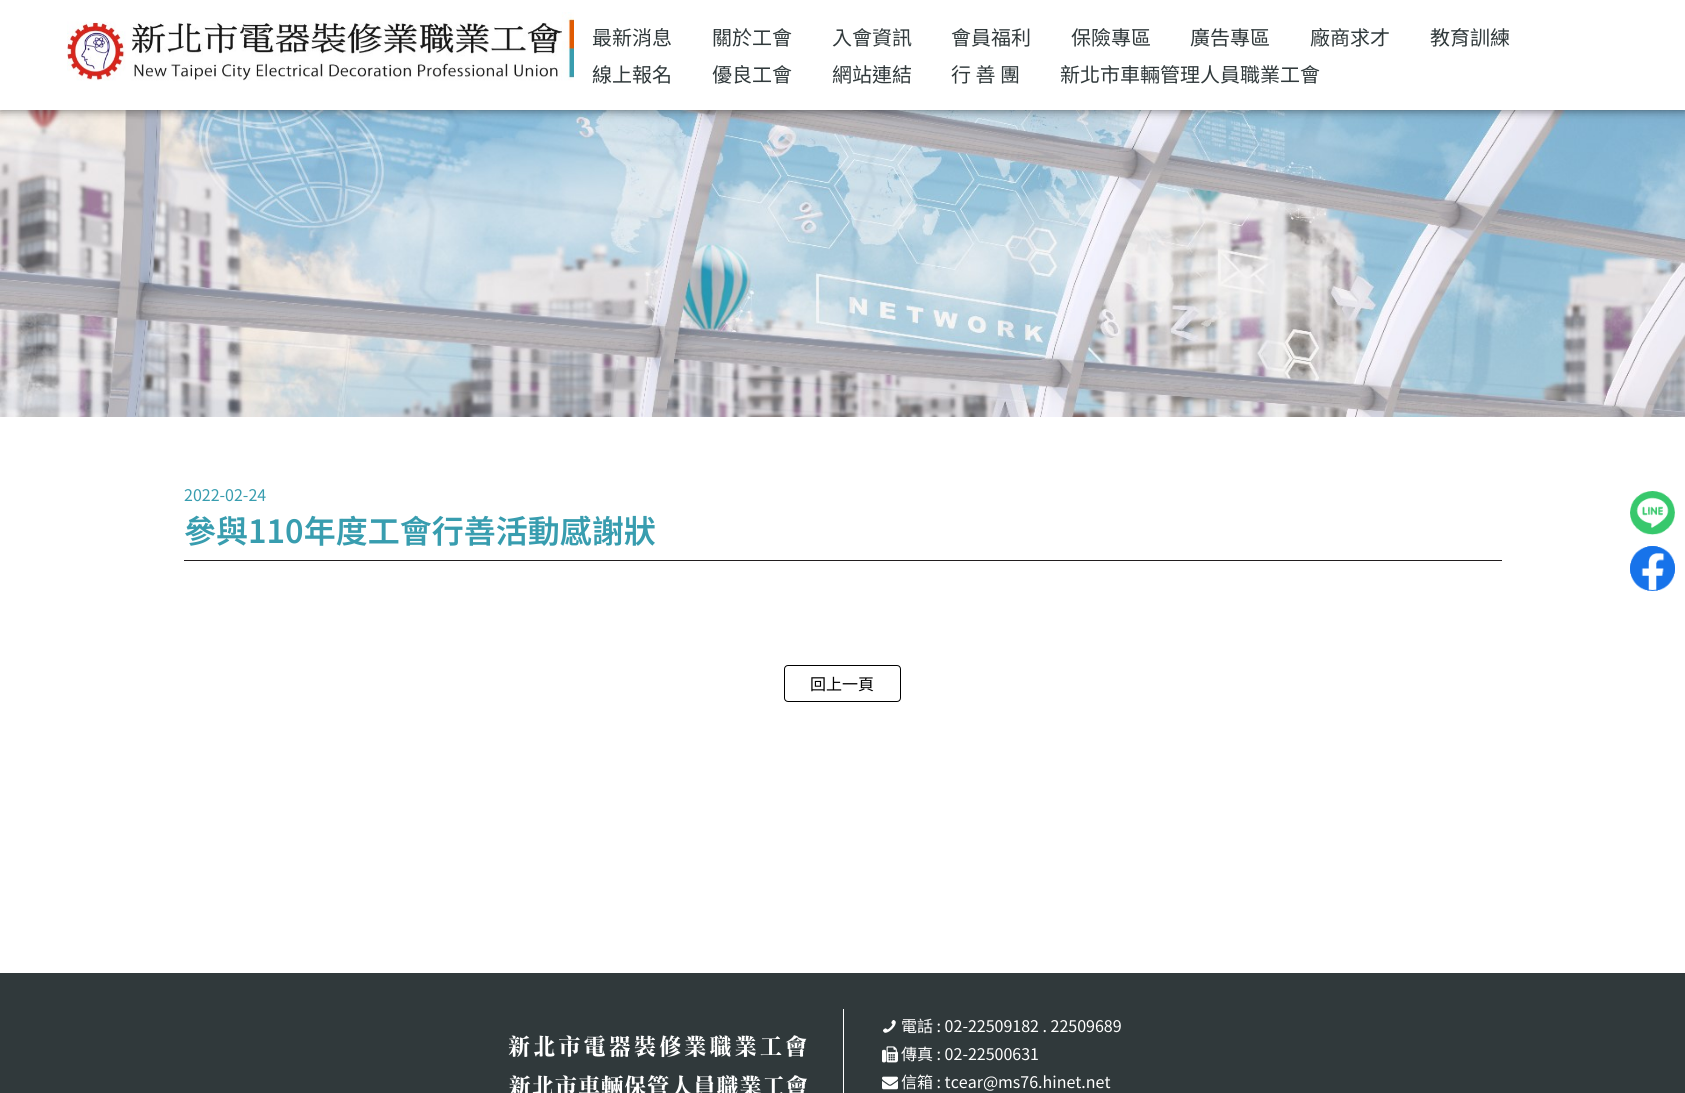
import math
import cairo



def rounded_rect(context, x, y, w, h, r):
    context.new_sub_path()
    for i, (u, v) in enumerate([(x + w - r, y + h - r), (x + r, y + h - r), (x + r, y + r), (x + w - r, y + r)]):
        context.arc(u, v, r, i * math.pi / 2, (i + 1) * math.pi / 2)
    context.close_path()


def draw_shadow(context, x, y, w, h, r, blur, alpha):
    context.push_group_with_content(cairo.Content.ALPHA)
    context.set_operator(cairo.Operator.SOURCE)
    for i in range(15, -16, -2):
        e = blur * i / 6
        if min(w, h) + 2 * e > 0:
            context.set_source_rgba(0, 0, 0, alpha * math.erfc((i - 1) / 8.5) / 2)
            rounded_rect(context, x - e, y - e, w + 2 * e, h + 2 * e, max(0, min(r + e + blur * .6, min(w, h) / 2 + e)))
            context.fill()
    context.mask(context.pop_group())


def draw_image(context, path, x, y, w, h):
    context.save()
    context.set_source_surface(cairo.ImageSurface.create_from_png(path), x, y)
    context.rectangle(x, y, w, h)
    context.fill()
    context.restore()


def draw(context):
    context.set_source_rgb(1, 1, 1)
    context.paint()
    draw_image(context, "images/2.png", 0, 110, 1685, 307)
    context.set_source_rgb(0, 0, 0)
    draw_shadow(context, 0, 0, 1685, 110, 0, 5, 0.57)
    context.set_source_rgb(1, 1, 1)
    context.rectangle(0, 0, 1685, 110)
    context.fill()
    draw_image(context, "images/1.png", 67, 12, 507, 69)
    context.set_source_rgb(34 / 255, 30 / 255, 31 / 255)
    context.rectangle(184, 560, 1318, 1)
    context.fill()
    rounded_rect(context, 784.5, 665.5, 116, 36, 3.5)
    context.set_source_rgb(0, 0, 0)
    context.set_line_width(1)
    context.stroke()
    draw_image(context, "images/3.png", 1630, 491, 45, 44)
    draw_image(context, "images/4.png", 1630, 546, 45, 45)
    context.set_source_rgb(48 / 255, 57 / 255, 59 / 255)
    context.rectangle(0, 973, 1685, 120)
    context.fill()
    draw_image(context, "images/5.png", 508, 1035, 299, 58)
    context.set_source_rgb(1, 1, 1)
    context.rectangle(843, 1009, 1, 84)
    context.fill()
    draw_image(context, "images/6.png", 883, 1020, 13, 13)
    draw_image(context, "images/7.png", 882, 1046, 16, 17)
    draw_image(context, "images/8.png", 882, 1076, 16, 14)
    context.select_font_face("Noto Sans TC")
    context.set_font_size(20)
    context.set_source_rgb(48 / 255, 57 / 255, 59 / 255)
    context.move_to(592, 45)
    context.show_text("最新消息")
    context.move_to(712, 45)
    context.show_text("關於工會")
    context.move_to(832, 45)
    context.show_text("入會資訊")
    context.move_to(951, 45)
    context.show_text("會員福利")
    context.move_to(1071, 45)
    context.show_text("保險專區")
    context.move_to(1190, 45)
    context.show_text("廣告專區")
    context.move_to(1310, 45)
    context.show_text("廠商求才")
    context.move_to(1430, 45)
    context.show_text("教育訓練")
    context.move_to(592, 82)
    context.show_text("線上報名")
    context.move_to(712, 82)
    context.show_text("優良工會")
    context.move_to(832, 82)
    context.show_text("網站連結")
    context.move_to(951, 82)
    context.show_text("行 善 團")
    context.move_to(1060, 82)
    context.show_text("新北市車輛管理人員職業工會")
    context.set_font_size(16)
    context.set_source_rgb(56 / 255, 157 / 255, 175 / 255)
    context.move_to(184, 501)
    context.show_text("2022-02-24")
    context.select_font_face("Noto Sans TC SemiBold")
    context.set_font_size(32)
    context.move_to(184, 543)
    context.show_text("參與110年度工會行善活動感謝狀")
    context.select_font_face("Noto Sans TC")
    context.set_font_size(16)
    context.set_source_rgb(0, 0, 0)
    context.move_to(810, 690)
    context.show_text("回上一頁")
    context.set_source_rgb(1, 1, 1)
    context.move_to(901, 1032)
    context.show_text("電話 : 02-22509182 . 22509689")
    context.move_to(901, 1060)
    context.show_text("傳真 : 02-22500631")
    context.move_to(901, 1088)
    context.show_text("信箱 : tcear@ms76.hinet.net")


surface = cairo.ImageSurface(cairo.Format.RGB24, 1685, 1093)
context = cairo.Context(surface)
options = cairo.FontOptions()
options.set_hint_metrics(cairo.HintMetrics.OFF)
options.set_hint_style(cairo.HintStyle.NONE)
context.set_font_options(options)
context.set_miter_limit(4)
draw(context)
surface.write_to_png("out.png")
